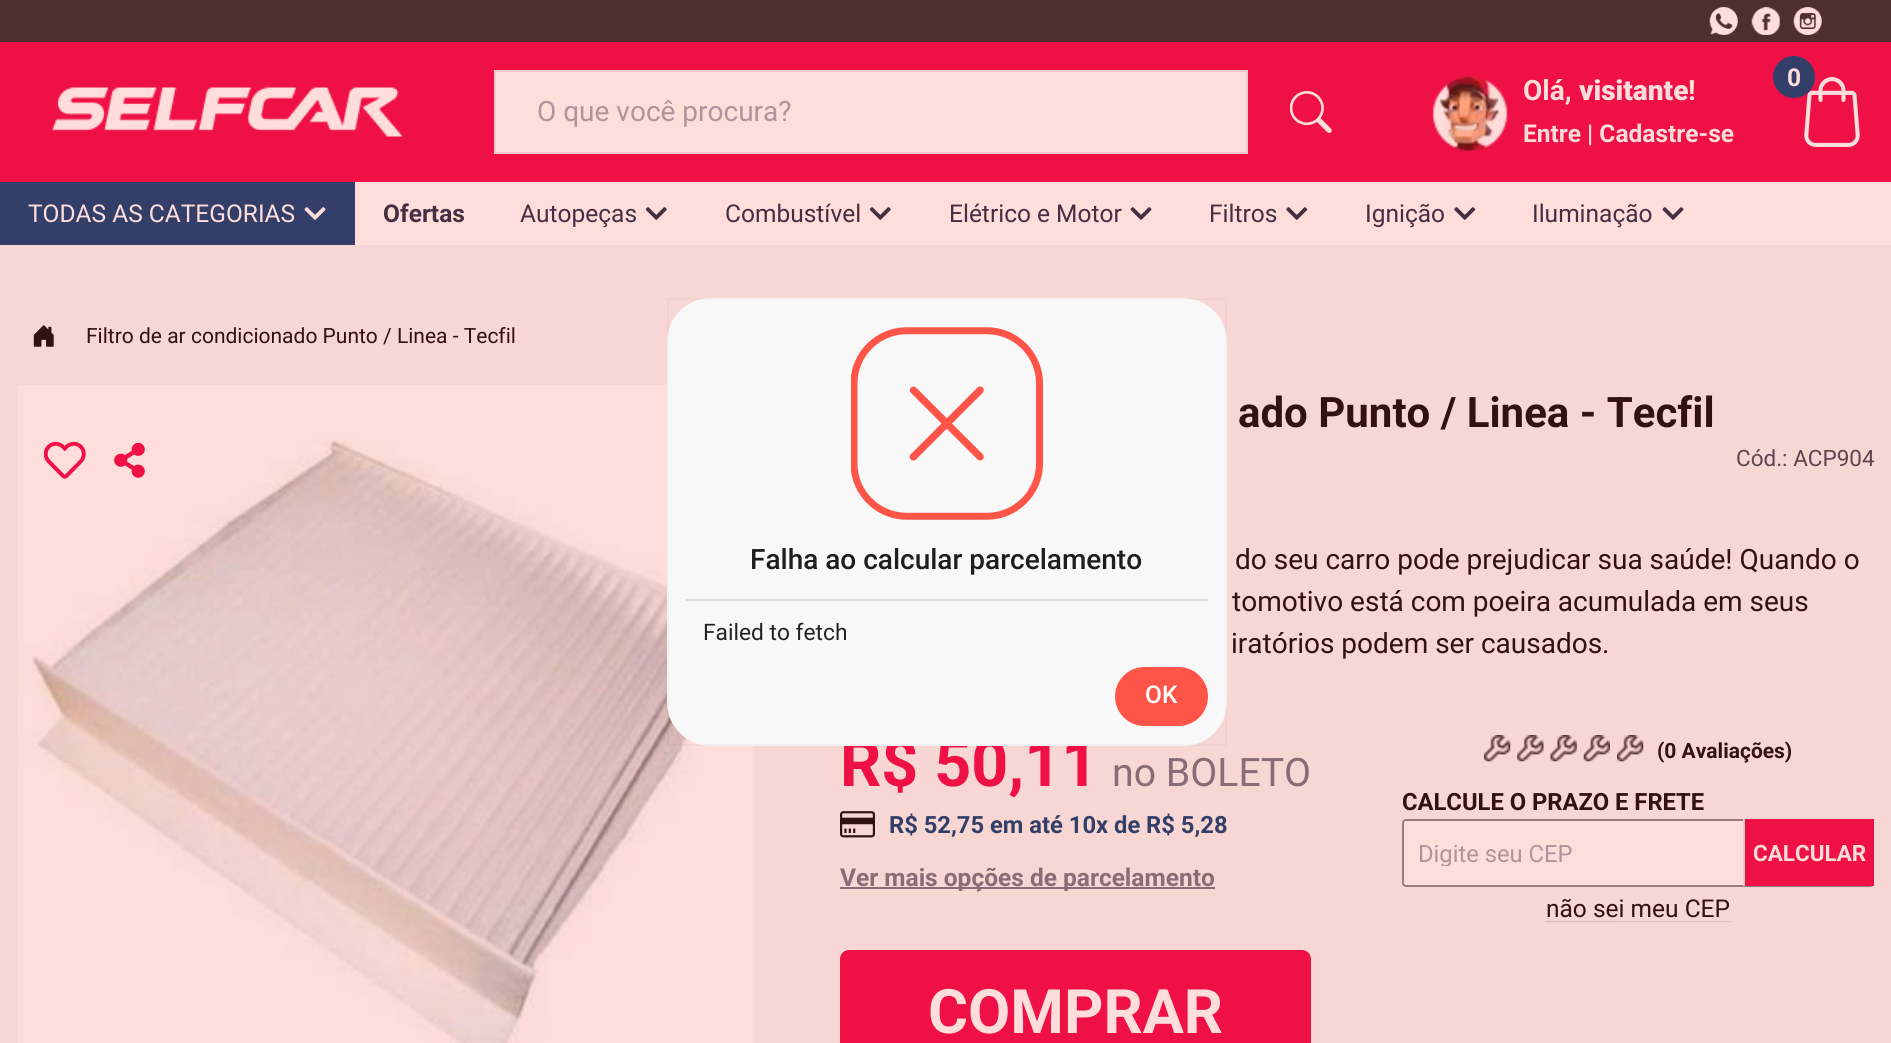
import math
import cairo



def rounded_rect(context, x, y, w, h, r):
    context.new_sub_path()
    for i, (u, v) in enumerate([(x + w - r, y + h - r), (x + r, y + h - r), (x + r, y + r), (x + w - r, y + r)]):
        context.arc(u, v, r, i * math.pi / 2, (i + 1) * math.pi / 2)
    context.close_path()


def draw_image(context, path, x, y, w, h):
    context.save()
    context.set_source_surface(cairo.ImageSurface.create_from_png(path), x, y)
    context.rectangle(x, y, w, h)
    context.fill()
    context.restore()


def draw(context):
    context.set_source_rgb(1, 221 / 255, 219 / 255)
    context.paint()
    context.set_source_rgb(80 / 255, 46 / 255, 43 / 255)
    context.rectangle(0, 0, 1891, 42)
    context.fill()
    draw_image(context, "images/1.png", 1709, 7, 29, 28)
    draw_image(context, "images/2.png", 1751, 7, 29, 28)
    draw_image(context, "images/3.png", 1793, 7, 29, 28)
    context.set_source_rgb(239 / 255, 17 / 255, 70 / 255)
    context.rectangle(0, 42, 1891, 140)
    context.fill()
    draw_image(context, "images/4.png", 52, 87, 351, 50)
    context.set_source_rgb(1, 221 / 255, 219 / 255)
    context.rectangle(495, 71, 752, 82)
    context.fill_preserve()
    context.set_source_rgb(234 / 255, 202 / 255, 203 / 255)
    context.stroke()
    draw_image(context, "images/5.png", 1290, 91, 42, 42)
    draw_image(context, "images/6.png", 1432, 76, 76, 75)
    draw_image(context, "images/7.png", 1804, 77, 56, 70)
    context.set_source_rgb(51 / 255, 63 / 255, 104 / 255)
    context.arc(1794, 77, 21, 0, 2 * math.pi)
    context.fill()
    context.rectangle(0, 182, 355, 63)
    context.fill()
    draw_image(context, "images/8.png", 304, 207, 22, 13)
    draw_image(context, "images/9.png", 645, 207, 22, 13)
    draw_image(context, "images/9.png", 869, 207, 22, 13)
    draw_image(context, "images/10.png", 1130, 207, 22, 13)
    draw_image(context, "images/11.png", 1286, 207, 22, 13)
    draw_image(context, "images/11.png", 1454, 207, 22, 13)
    draw_image(context, "images/10.png", 1662, 207, 22, 13)
    context.set_source_rgb(248 / 255, 214 / 255, 211 / 255)
    context.rectangle(0, 245, 1891, 798)
    context.fill()
    draw_image(context, "images/12.png", 33, 325, 21, 22)
    draw_image(context, "images/13.png", 18, 385, 735, 658)
    draw_image(context, "images/14.png", 44, 441, 42, 38)
    draw_image(context, "images/15.png", 114, 443, 31, 35)
    draw_image(context, "images/16.png", 840, 811, 35, 27)
    context.set_source_rgb(137 / 255, 108 / 255, 117 / 255)
    context.rectangle(840, 887, 375, 2)
    context.fill()
    context.set_source_rgb(239 / 255, 17 / 255, 70 / 255)
    rounded_rect(context, 840, 950, 471, 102, 9)
    context.fill()
    draw_image(context, "images/17.png", 1484, 735, 27, 27)
    draw_image(context, "images/18.png", 1517, 735, 27, 27)
    draw_image(context, "images/19.png", 1550, 735, 27, 27)
    draw_image(context, "images/20.png", 1583, 735, 27, 27)
    draw_image(context, "images/17.png", 1617, 735, 27, 27)
    context.set_source_rgb(1, 221 / 255, 219 / 255)
    rounded_rect(context, 1403, 820, 470, 66, 3)
    context.fill_preserve()
    context.set_source_rgb(157 / 255, 123 / 255, 120 / 255)
    context.stroke()
    context.set_source_rgb(239 / 255, 17 / 255, 70 / 255)
    context.rectangle(1745, 819, 129, 67)
    context.fill()
    context.set_source_rgb(234 / 255, 202 / 255, 203 / 255)
    context.rectangle(1743, 819, 2, 67)
    context.fill()
    gradient = cairo.LinearGradient(1545, 921, 1731, 921)
    gradient.add_color_stop_rgba(0, 217 / 255, 183 / 255, 181 / 255, 1)
    gradient.add_color_stop_rgba(1, 229 / 255, 195 / 255, 193 / 255, 1)
    context.set_source(gradient)
    context.rectangle(1545, 921, 186, 1)
    context.fill()
    context.select_font_face("Roboto")
    context.set_font_size(28)
    context.set_source_rgb(176 / 255, 147 / 255, 155 / 255)
    context.move_to(537, 121)
    context.show_text("O que você procura?")
    context.select_font_face("Roboto", cairo.FontSlant.NORMAL, cairo.FontWeight.BOLD)
    context.set_source_rgb(1, 221 / 255, 219 / 255)
    context.move_to(1523, 100)
    context.show_text("Olá,")
    context.select_font_face("Roboto Black")
    context.move_to(1579, 100)
    context.show_text("visitante")
    context.select_font_face("Roboto", cairo.FontSlant.NORMAL, cairo.FontWeight.BOLD)
    context.move_to(1688, 100)
    context.show_text("!")
    context.set_font_size(24.5)
    context.move_to(1523, 142)
    context.show_text("Entre | Cadastre-se")
    context.move_to(1787, 86)
    context.show_text("0")
    context.select_font_face("Roboto")
    context.move_to(28, 222)
    context.show_text("TODAS AS CATEGORIAS")
    context.select_font_face("Roboto", cairo.FontSlant.NORMAL, cairo.FontWeight.BOLD)
    context.set_source_rgb(69 / 255, 47 / 255, 66 / 255)
    context.move_to(383, 222)
    context.show_text("Ofertas")
    context.select_font_face("Roboto")
    context.move_to(520, 222)
    context.show_text("Autopeças")
    context.move_to(725, 222)
    context.show_text("Combustível")
    context.move_to(949, 222)
    context.show_text("Elétrico e Motor")
    context.move_to(1209, 222)
    context.show_text("Filtros")
    context.move_to(1365, 222)
    context.show_text("Ignição")
    context.move_to(1532, 222)
    context.show_text("Iluminação")
    context.set_font_size(21)
    context.set_source_rgb(51 / 255, 17 / 255, 15 / 255)
    context.move_to(86, 343)
    context.show_text("Filtro de ar condicionado Punto / Linea - Tecfil")
    context.select_font_face("Roboto", cairo.FontSlant.NORMAL, cairo.FontWeight.BOLD)
    context.set_font_size(42)
    context.move_to(1238, 427)
    context.show_text("ado Punto / Linea - Tecfil")
    context.select_font_face("Roboto")
    context.set_font_size(22.5)
    context.set_source_rgb(95 / 255, 69 / 255, 79 / 255)
    context.move_to(1736, 466)
    context.show_text("Cód.: ACP904")
    context.set_font_size(28)
    context.set_source_rgb(51 / 255, 17 / 255, 15 / 255)
    context.move_to(1235, 569)
    context.show_text("do seu carro pode prejudicar sua saúde! Quando o")
    context.move_to(1232, 611)
    context.show_text("tomotivo está com poeira acumulada em seus")
    context.move_to(1231, 653)
    context.show_text("iratórios podem ser causados.")
    context.select_font_face("Roboto", cairo.FontSlant.NORMAL, cairo.FontWeight.BOLD)
    context.set_font_size(64.5)
    context.set_source_rgb(239 / 255, 17 / 255, 70 / 255)
    context.move_to(840, 786)
    context.show_text("R$ 50,11")
    context.select_font_face("Roboto")
    context.set_font_size(39.25)
    context.set_source_rgb(137 / 255, 108 / 255, 117 / 255)
    context.move_to(1112, 786)
    context.show_text("no BOLETO")
    context.select_font_face("Roboto", cairo.FontSlant.NORMAL, cairo.FontWeight.BOLD)
    context.set_font_size(23.75)
    context.set_source_rgb(51 / 255, 63 / 255, 104 / 255)
    context.move_to(889, 833)
    context.show_text("R$ 52,75 em até 10x de R$ 5,28")
    context.set_font_size(24.5)
    context.set_source_rgb(137 / 255, 108 / 255, 117 / 255)
    context.move_to(840, 886)
    context.show_text("Ver mais opções de parcelamento")
    context.set_font_size(61.25)
    context.set_source_rgb(1, 221 / 255, 219 / 255)
    context.move_to(928, 1033)
    context.show_text("COMPRAR")
    context.set_font_size(21)
    context.set_source_rgb(51 / 255, 17 / 255, 15 / 255)
    context.move_to(1657, 758)
    context.show_text("(0 Avaliações)")
    context.set_font_size(23.75)
    context.move_to(1402, 810)
    context.show_text("CALCULE O PRAZO E FRETE")
    context.save()
    context.rectangle(1418, 838, 441, 28)
    context.clip()
    context.select_font_face("Roboto")
    context.set_source_rgb(176 / 255, 147 / 255, 155 / 255)
    context.move_to(1418, 862)
    context.show_text("Digite seu CEP")
    context.restore()
    context.set_font_size(22.5)
    context.set_source_rgb(1, 221 / 255, 219 / 255)
    context.move_to(1753, 861)
    context.show_text("CALCULAR")
    context.select_font_face("Roboto")
    context.set_font_size(24.5)
    context.set_source_rgb(51 / 255, 17 / 255, 15 / 255)
    context.move_to(1546, 917)
    context.show_text("não sei meu CEP")
    context.set_source_rgb(248 / 255, 248 / 255, 248 / 255)
    rounded_rect(context, 667, 298, 560, 448, 44)
    context.fill()
    context.rectangle(668, 299, 558, 446)
    context.set_source_rgba(0, 0, 0, 0.03)
    context.stroke()
    draw_image(context, "images/21.png", 851, 327, 192, 193)
    context.set_source_rgb(223 / 255, 223 / 255, 223 / 255)
    context.rectangle(686, 599, 522, 2)
    context.fill()
    context.select_font_face("Roboto Medium")
    context.set_font_size(28)
    context.set_source_rgb(30 / 255, 30 / 255, 30 / 255)
    context.move_to(750, 569)
    context.show_text("Falha ao calcular parcelamento")
    context.select_font_face("Roboto")
    context.set_font_size(22.75)
    context.set_source_rgb(36 / 255, 36 / 255, 36 / 255)
    context.move_to(703, 640)
    context.show_text("Failed to fetch")
    context.set_source_rgb(1, 85 / 255, 73 / 255)
    rounded_rect(context, 1115, 667, 93, 59, 29.5)
    context.fill()
    context.select_font_face("Roboto Medium")
    context.set_font_size(24.5)
    context.set_source_rgb(1, 1, 1)
    context.move_to(1145, 703)
    context.show_text("OK")


surface = cairo.ImageSurface(cairo.Format.RGB24, 1891, 1043)
context = cairo.Context(surface)
options = cairo.FontOptions()
options.set_hint_metrics(cairo.HintMetrics.OFF)
options.set_hint_style(cairo.HintStyle.NONE)
context.set_font_options(options)
context.set_miter_limit(4)
draw(context)
surface.write_to_png("out.png")
